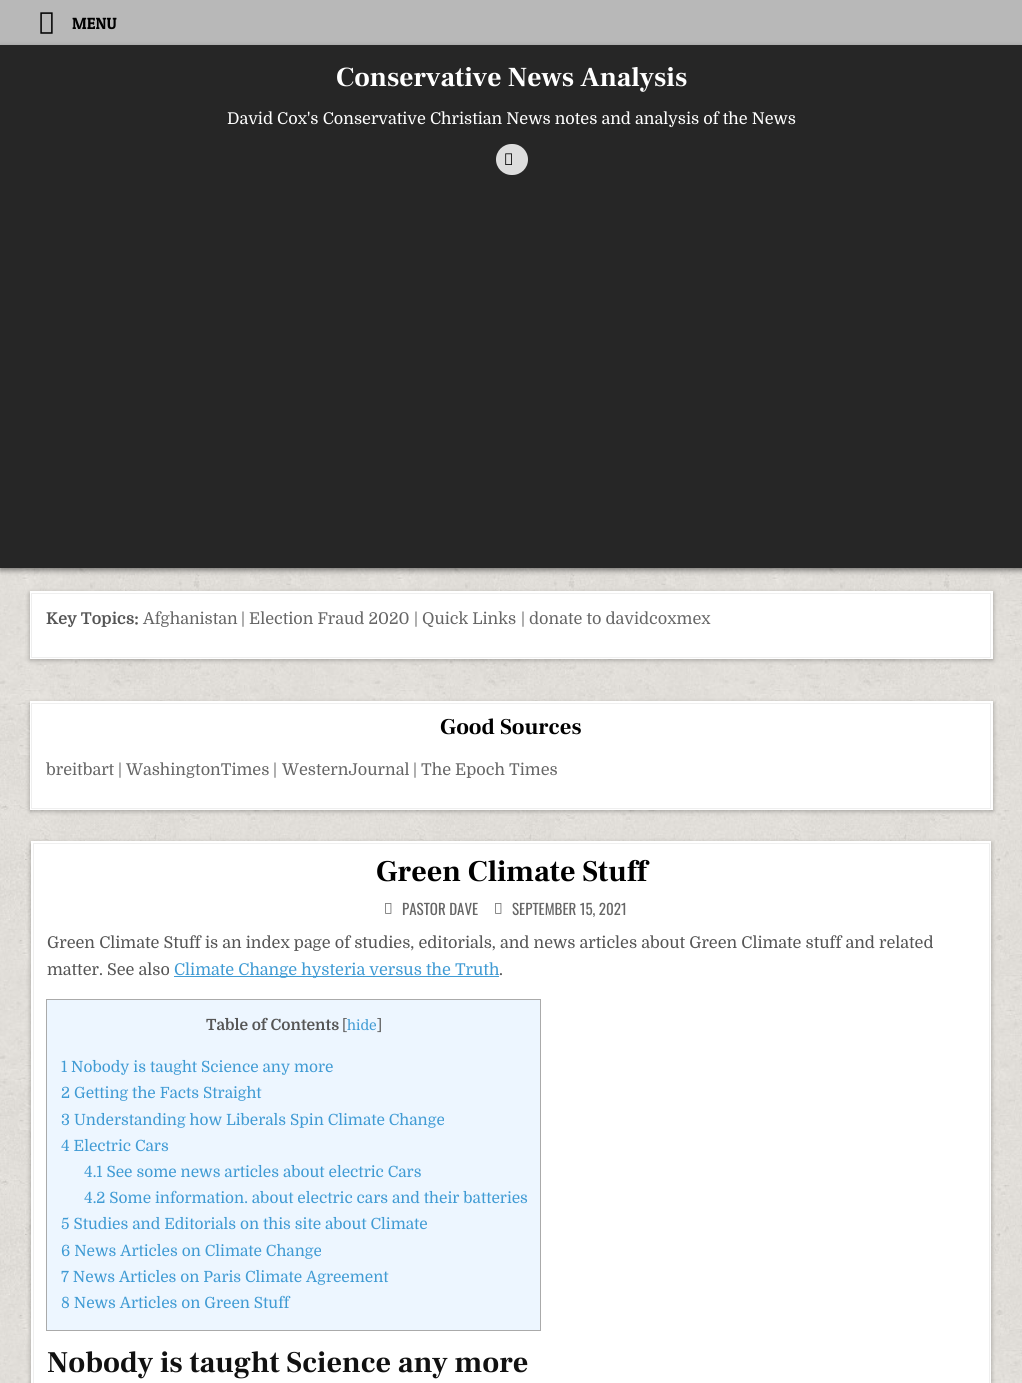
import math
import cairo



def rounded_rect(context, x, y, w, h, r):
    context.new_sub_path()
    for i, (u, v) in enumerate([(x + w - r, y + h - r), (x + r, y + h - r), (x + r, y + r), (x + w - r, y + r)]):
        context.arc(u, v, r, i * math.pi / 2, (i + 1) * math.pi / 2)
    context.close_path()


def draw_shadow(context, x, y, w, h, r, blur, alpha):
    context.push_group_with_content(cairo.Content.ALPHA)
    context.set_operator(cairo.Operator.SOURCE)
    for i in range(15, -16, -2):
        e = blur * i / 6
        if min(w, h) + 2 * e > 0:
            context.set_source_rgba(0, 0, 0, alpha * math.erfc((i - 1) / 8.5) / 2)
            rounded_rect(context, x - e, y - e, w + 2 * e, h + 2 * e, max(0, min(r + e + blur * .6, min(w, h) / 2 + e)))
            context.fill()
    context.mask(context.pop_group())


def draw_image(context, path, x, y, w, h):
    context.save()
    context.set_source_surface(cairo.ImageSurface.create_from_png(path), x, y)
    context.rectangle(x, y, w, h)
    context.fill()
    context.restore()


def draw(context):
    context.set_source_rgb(1, 1, 1)
    context.paint()
    draw_image(context, "images/1.png", 0, 568, 1022, 815)
    context.set_source_rgb(184 / 255, 184 / 255, 184 / 255)
    context.rectangle(0, 0, 1022, 45)
    context.fill()
    draw_image(context, "images/2.png", 40, 12, 13, 22)
    context.set_source_rgb(0, 0, 0)
    draw_shadow(context, 0, 48, 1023, 522, 0, 3, 0.5)
    context.set_source_rgb(38 / 255, 38 / 255, 38 / 255)
    context.rectangle(0, 45, 1022, 523)
    context.fill()
    context.set_source_rgb(221 / 255, 221 / 255, 221 / 255)
    rounded_rect(context, 496, 144, 32, 31, 15.5)
    context.fill()
    draw_image(context, "images/3.png", 505, 153, 7, 12)
    context.set_source_rgb(0, 0, 0)
    draw_shadow(context, 30, 593, 963, 67, 0, 2.5, 0.3)
    context.set_source_rgb(1, 1, 1)
    context.rectangle(30, 591, 963, 68)
    context.fill()
    context.rectangle(31.5, 593.5, 959, 64)
    context.set_source_rgb(239 / 255, 239 / 255, 239 / 255)
    context.set_line_width(1)
    context.stroke()
    context.set_source_rgb(0, 0, 0)
    draw_shadow(context, 30, 703, 963, 108, 0, 2.5, 0.3)
    context.set_source_rgb(1, 1, 1)
    context.rectangle(30, 701, 963, 109)
    context.fill()
    context.rectangle(31.5, 703.5, 959, 105)
    context.set_source_rgb(239 / 255, 239 / 255, 239 / 255)
    context.stroke()
    context.set_source_rgb(0, 0, 0)
    draw_shadow(context, 31, 843, 960, 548, 0, 2.5, 0.3)
    context.set_source_rgb(1, 1, 1)
    context.rectangle(31, 841, 960, 542)
    context.fill()
    context.rectangle(33.5, 843.5, 956, 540)
    context.set_source_rgb(239 / 255, 239 / 255, 239 / 255)
    context.stroke()
    draw_image(context, "images/4.png", 385, 903, 7, 11)
    draw_image(context, "images/4.png", 495, 903, 7, 11)
    context.set_source_rgb(64 / 255, 155 / 255, 212 / 255)
    context.rectangle(174, 976, 325, 1)
    context.fill()
    context.set_source_rgb(237 / 255, 246 / 255, 1)
    context.rectangle(46.5, 999.5, 494, 331)
    context.fill_preserve()
    context.set_source_rgb(170 / 255, 170 / 255, 170 / 255)
    context.stroke()
    context.select_font_face("Patua One")
    context.set_font_size(16.25)
    context.set_source_rgb(0, 0, 0)
    context.move_to(72, 29)
    context.show_text("MENU")
    context.select_font_face("Frank Ruhl Libre", cairo.FontSlant.NORMAL, cairo.FontWeight.BOLD)
    context.set_font_size(27.5)
    context.set_source_rgb(1, 1, 1)
    context.move_to(336, 86)
    context.show_text("Conservative News Analysis")
    context.select_font_face("Domine")
    context.set_font_size(16.25)
    context.move_to(227, 124)
    context.show_text("David Cox's Conservative Christian News notes and analysis of the News")
    context.select_font_face("Domine", cairo.FontSlant.NORMAL, cairo.FontWeight.BOLD)
    context.set_source_rgb(85 / 255, 85 / 255, 85 / 255)
    context.move_to(46, 624)
    context.show_text("Key Topics:")
    context.select_font_face("Domine")
    context.set_source_rgb(102 / 255, 102 / 255, 102 / 255)
    context.move_to(143, 624)
    context.show_text("Afghanistan")
    context.set_source_rgb(85 / 255, 85 / 255, 85 / 255)
    context.move_to(241, 624)
    context.show_text("|")
    context.set_source_rgb(102 / 255, 102 / 255, 102 / 255)
    context.move_to(249, 624)
    context.show_text("Election Fraud 2020")
    context.set_source_rgb(85 / 255, 85 / 255, 85 / 255)
    context.move_to(414, 624)
    context.show_text("|")
    context.set_source_rgb(102 / 255, 102 / 255, 102 / 255)
    context.move_to(422, 624)
    context.show_text("Quick Links")
    context.set_source_rgb(85 / 255, 85 / 255, 85 / 255)
    context.move_to(521, 624)
    context.show_text("|")
    context.set_source_rgb(102 / 255, 102 / 255, 102 / 255)
    context.move_to(529, 624)
    context.show_text("donate to davidcoxmex")
    context.select_font_face("Frank Ruhl Libre", cairo.FontSlant.NORMAL, cairo.FontWeight.BOLD)
    context.set_font_size(22.5)
    context.set_source_rgb(0, 0, 0)
    context.move_to(440, 734)
    context.show_text("Good Sources")
    context.select_font_face("Domine")
    context.set_font_size(16.25)
    context.set_source_rgb(102 / 255, 102 / 255, 102 / 255)
    context.move_to(46, 775)
    context.show_text("breitbart")
    context.set_source_rgb(85 / 255, 85 / 255, 85 / 255)
    context.move_to(118, 775)
    context.show_text("|")
    context.set_source_rgb(102 / 255, 102 / 255, 102 / 255)
    context.move_to(126, 775)
    context.show_text("WashingtonTimes")
    context.set_source_rgb(85 / 255, 85 / 255, 85 / 255)
    context.move_to(273, 775)
    context.show_text("|")
    context.set_source_rgb(102 / 255, 102 / 255, 102 / 255)
    context.move_to(282, 775)
    context.show_text("WesternJournal")
    context.set_source_rgb(85 / 255, 85 / 255, 85 / 255)
    context.move_to(413, 775)
    context.show_text("|")
    context.set_source_rgb(102 / 255, 102 / 255, 102 / 255)
    context.move_to(421, 775)
    context.show_text("The Epoch Times")
    context.select_font_face("Frank Ruhl Libre", cairo.FontSlant.NORMAL, cairo.FontWeight.BOLD)
    context.set_font_size(30)
    context.set_source_rgb(0, 0, 0)
    context.move_to(376, 881)
    context.show_text("Green Climate Stuff")
    context.select_font_face("Oswald")
    context.set_font_size(15)
    context.set_source_rgb(102 / 255, 102 / 255, 102 / 255)
    context.move_to(402, 915)
    context.show_text("PASTOR DAVE")
    context.move_to(512, 915)
    context.show_text("SEPTEMBER 15, 2021")
    context.select_font_face("Domine")
    context.set_font_size(16.25)
    context.set_source_rgb(85 / 255, 85 / 255, 85 / 255)
    context.move_to(47, 948)
    context.show_text("Green Climate Stuff is an index page of studies, editorials, and news articles about Green Climate stuff and related")
    context.move_to(47, 975)
    context.show_text("matter. See also")
    context.set_source_rgb(64 / 255, 155 / 255, 212 / 255)
    context.move_to(174, 975)
    context.show_text("Climate Change hysteria versus the Truth")
    context.set_source_rgb(85 / 255, 85 / 255, 85 / 255)
    context.move_to(499, 975)
    context.show_text(".")
    context.select_font_face("Domine", cairo.FontSlant.NORMAL, cairo.FontWeight.BOLD)
    context.set_font_size(15.45)
    context.move_to(206, 1030)
    context.show_text("Table of Contents")
    context.select_font_face("Domine")
    context.set_font_size(14)
    context.move_to(342, 1030)
    context.show_text("[")
    context.set_source_rgb(64 / 255, 155 / 255, 212 / 255)
    context.move_to(347, 1030)
    context.show_text("hide")
    context.set_source_rgb(85 / 255, 85 / 255, 85 / 255)
    context.move_to(377, 1030)
    context.show_text("]")
    context.set_font_size(15.45)
    context.set_source_rgb(64 / 255, 155 / 255, 212 / 255)
    context.move_to(61, 1072)
    context.show_text("1 Nobody is taught Science any more")
    context.move_to(61, 1098)
    context.show_text("2 Getting the Facts Straight")
    context.move_to(61, 1125)
    context.show_text("3 Understanding how Liberals Spin Climate Change")
    context.move_to(61, 1151)
    context.show_text("4 Electric Cars")
    context.move_to(84, 1177)
    context.show_text("4.1 See some news articles about electric Cars")
    context.move_to(84, 1203)
    context.show_text("4.2 Some information. about electric cars and their batteries")
    context.move_to(61, 1229)
    context.show_text("5 Studies and Editorials on this site about Climate")
    context.move_to(61, 1256)
    context.show_text("6 News Articles on Climate Change")
    context.move_to(61, 1282)
    context.show_text("7 News Articles on Paris Climate Agreement")
    context.move_to(61, 1308)
    context.show_text("8 News Articles on Green Stuff")
    context.select_font_face("Frank Ruhl Libre", cairo.FontSlant.NORMAL, cairo.FontWeight.BOLD)
    context.set_font_size(30)
    context.set_source_rgb(17 / 255, 17 / 255, 17 / 255)
    context.move_to(47, 1372)
    context.show_text("Nobody is taught Science any more")


surface = cairo.ImageSurface(cairo.Format.RGB24, 1022, 1383)
context = cairo.Context(surface)
options = cairo.FontOptions()
options.set_hint_metrics(cairo.HintMetrics.OFF)
options.set_hint_style(cairo.HintStyle.NONE)
context.set_font_options(options)
context.set_miter_limit(4)
draw(context)
surface.write_to_png("out.png")
